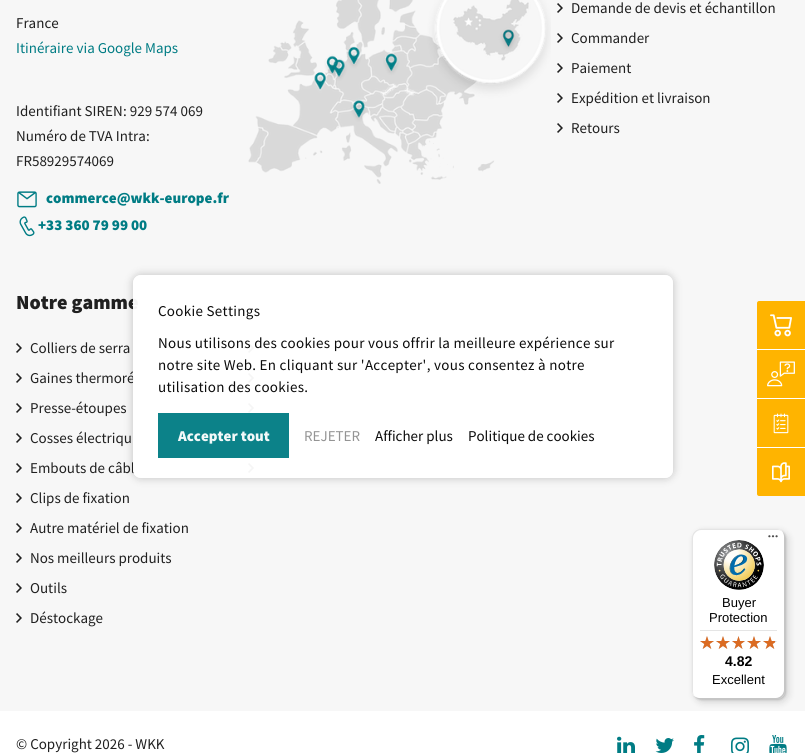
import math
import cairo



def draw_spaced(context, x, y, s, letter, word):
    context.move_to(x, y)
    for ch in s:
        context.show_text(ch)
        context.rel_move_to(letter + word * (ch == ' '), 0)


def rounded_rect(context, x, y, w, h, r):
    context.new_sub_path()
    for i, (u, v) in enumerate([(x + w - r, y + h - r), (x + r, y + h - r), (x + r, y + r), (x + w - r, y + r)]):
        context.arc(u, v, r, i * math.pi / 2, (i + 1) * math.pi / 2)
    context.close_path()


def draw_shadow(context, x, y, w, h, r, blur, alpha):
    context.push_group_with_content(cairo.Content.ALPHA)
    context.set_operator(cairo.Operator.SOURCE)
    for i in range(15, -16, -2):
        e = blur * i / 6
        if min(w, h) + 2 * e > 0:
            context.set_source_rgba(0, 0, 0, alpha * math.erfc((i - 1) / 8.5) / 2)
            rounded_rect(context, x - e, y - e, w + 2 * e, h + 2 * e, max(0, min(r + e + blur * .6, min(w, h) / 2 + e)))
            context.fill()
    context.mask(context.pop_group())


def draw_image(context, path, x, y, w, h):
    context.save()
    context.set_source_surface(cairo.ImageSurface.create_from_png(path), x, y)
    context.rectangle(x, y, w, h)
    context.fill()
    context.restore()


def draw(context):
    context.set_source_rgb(247 / 255, 247 / 255, 247 / 255)
    context.paint()
    draw_image(context, "images/1.png", 17, 191, 20, 17)
    draw_image(context, "images/2.png", 19, 216, 16, 21)
    draw_image(context, "images/3.png", 248, 0, 303, 184)
    draw_image(context, "images/4.png", 557, 3, 6, 10)
    draw_image(context, "images/4.png", 557, 33, 6, 10)
    draw_image(context, "images/4.png", 557, 63, 6, 10)
    draw_image(context, "images/4.png", 557, 93, 6, 10)
    draw_image(context, "images/4.png", 557, 123, 6, 10)
    draw_image(context, "images/4.png", 16, 343, 6, 10)
    draw_image(context, "images/4.png", 16, 373, 6, 10)
    draw_image(context, "images/4.png", 16, 403, 6, 10)
    draw_image(context, "images/4.png", 16, 433, 6, 10)
    draw_image(context, "images/4.png", 16, 463, 6, 10)
    draw_image(context, "images/4.png", 16, 493, 6, 10)
    draw_image(context, "images/4.png", 16, 523, 6, 10)
    draw_image(context, "images/4.png", 16, 553, 6, 10)
    draw_image(context, "images/4.png", 16, 583, 6, 10)
    draw_image(context, "images/4.png", 16, 613, 6, 10)
    draw_image(context, "images/4.png", 248, 343, 6, 10)
    draw_image(context, "images/4.png", 248, 373, 6, 10)
    draw_image(context, "images/4.png", 248, 403, 6, 10)
    draw_image(context, "images/4.png", 248, 433, 6, 10)
    draw_image(context, "images/4.png", 248, 463, 6, 10)
    context.set_source_rgb(1, 1, 1)
    context.rectangle(0, 711, 805, 42)
    context.fill()
    draw_image(context, "images/5.png", 617, 736, 18, 17)
    draw_image(context, "images/6.png", 655, 738, 19, 15)
    draw_image(context, "images/7.png", 694, 735, 11, 18)
    draw_image(context, "images/8.png", 731, 737, 18, 16)
    draw_image(context, "images/9.png", 769, 735, 18, 18)
    context.set_source_rgb(1, 180 / 255, 0)
    context.new_path()
    context.move_to(759, 301)
    context.line_to(805, 301)
    context.line_to(805, 350)
    context.line_to(757, 350)
    context.line_to(757, 303)
    context.curve_to(757, 302, 758, 301, 759, 301)
    context.close_path()
    context.fill()
    context.set_source_rgb(1, 1, 1)
    context.rectangle(757, 349, 48, 1)
    context.fill()
    draw_image(context, "images/10.png", 770, 314, 22, 23)
    context.set_source_rgb(1, 180 / 255, 0)
    context.rectangle(757, 350, 48, 48)
    context.fill()
    context.set_source_rgb(1, 1, 1)
    context.rectangle(757, 398, 48, 1)
    context.fill()
    draw_image(context, "images/11.png", 767, 361, 28, 26)
    context.set_source_rgb(1, 180 / 255, 0)
    context.rectangle(757, 399, 48, 48)
    context.fill()
    context.set_source_rgb(1, 1, 1)
    context.rectangle(757, 447, 48, 1)
    context.fill()
    draw_image(context, "images/12.png", 773, 413, 16, 21)
    context.set_source_rgb(1, 180 / 255, 0)
    context.new_path()
    context.move_to(757, 448)
    context.line_to(805, 448)
    context.line_to(805, 496)
    context.line_to(759, 496)
    context.curve_to(758, 496, 757, 495, 757, 494)
    context.close_path()
    context.fill()
    draw_image(context, "images/13.png", 772, 462, 18, 21)
    context.save()
    context.set_fill_rule(cairo.FillRule.EVEN_ODD)
    context.new_path()
    context.move_to(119, 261)
    context.line_to(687, 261)
    context.line_to(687, 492)
    context.line_to(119, 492)
    context.close_path()
    context.move_to(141, 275)
    context.line_to(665, 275)
    context.curve_to(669.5, 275, 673, 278.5, 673, 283)
    context.line_to(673, 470)
    context.curve_to(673, 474.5, 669.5, 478, 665, 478)
    context.line_to(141, 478)
    context.curve_to(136.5, 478, 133, 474.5, 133, 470)
    context.line_to(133, 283)
    context.curve_to(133, 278.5, 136.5, 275, 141, 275)
    context.close_path()
    context.clip()
    context.set_source_rgb(0, 0, 0)
    draw_shadow(context, 132, 274, 542, 205, 9, 4, 0.19)
    context.restore()
    context.set_source_rgb(0, 0, 0)
    draw_shadow(context, 695, 532, 93, 170, 8, 4, 0.15)
    draw_shadow(context, 693, 530, 93, 170, 8, 1, 0.15)
    context.set_source_rgb(1, 1, 1)
    rounded_rect(context, 692, 529, 93, 170, 8)
    context.fill()
    context.set_source_rgb(229 / 255, 229 / 255, 229 / 255)
    context.new_path()
    context.move_to(701, 530)
    context.line_to(778, 530)
    context.curve_to(780, 530, 782, 531, 784, 533)
    context.curve_to(782, 531, 780, 529, 777, 529)
    context.line_to(700, 529)
    context.curve_to(696, 529, 692, 533, 692, 537)
    context.line_to(692, 691)
    context.curve_to(692, 694, 694, 696, 696, 698)
    context.curve_to(694, 696, 693, 694, 693, 692)
    context.line_to(693, 538)
    context.curve_to(693, 534, 697, 530, 701, 530)
    context.close_path()
    context.fill()
    context.set_source_rgba(0, 0, 0, 0.2)
    context.new_path()
    context.move_to(693, 695)
    context.curve_to(695, 697, 697, 699, 700, 699)
    context.line_to(777, 699)
    context.curve_to(781, 699, 785, 695, 785, 691)
    context.line_to(785, 537)
    context.curve_to(785, 534, 783, 532, 781, 530)
    context.curve_to(783, 532, 784, 534, 784, 536)
    context.line_to(784, 690)
    context.curve_to(784, 694, 780, 698, 776, 698)
    context.line_to(699, 698)
    context.curve_to(697, 698, 695, 697, 693, 695)
    context.close_path()
    context.fill()
    context.set_source_rgba(50 / 255, 50 / 255, 50 / 255, 0.2)
    context.new_path()
    context.move_to(694, 696)
    context.curve_to(695, 698, 698, 699, 700, 699)
    context.line_to(777, 699)
    context.curve_to(781, 699, 785, 695, 785, 691)
    context.line_to(785, 537)
    context.curve_to(785, 535, 784, 532, 782, 531)
    context.curve_to(783, 532, 784, 534, 784, 536)
    context.line_to(784, 690)
    context.curve_to(784, 695, 781, 698, 776, 698)
    context.line_to(699, 698)
    context.curve_to(697, 698, 695, 697, 694, 696)
    context.close_path()
    context.fill()
    context.set_source_rgba(1, 1, 1, 0.3)
    context.new_path()
    context.move_to(692, 690)
    context.line_to(692, 691)
    context.curve_to(692, 695, 696, 699, 700, 699)
    context.line_to(777, 699)
    context.curve_to(781, 699, 785, 695, 785, 691)
    context.line_to(785, 537)
    context.curve_to(785, 535, 784, 532, 782, 531)
    context.curve_to(783, 532, 784, 534, 784, 536)
    context.line_to(784, 690)
    context.curve_to(784, 695, 781, 698, 776, 698)
    context.line_to(700, 698)
    context.curve_to(695, 698, 692, 695, 692, 690)
    context.close_path()
    context.fill()
    draw_image(context, "images/14.png", 768, 535, 10, 3)
    draw_image(context, "images/15.png", 714, 540, 50, 50)
    context.set_source_rgb(229 / 255, 229 / 255, 229 / 255)
    context.rectangle(700, 630, 77, 1)
    context.fill()
    draw_image(context, "images/16.png", 700, 636, 14, 13)
    draw_image(context, "images/16.png", 716, 636, 14, 13)
    draw_image(context, "images/17.png", 732, 636, 13, 13)
    draw_image(context, "images/16.png", 747, 636, 14, 13)
    draw_image(context, "images/16.png", 763, 636, 14, 13)
    draw_image(context, "images/18.png", 700, 636, 14, 13)
    draw_image(context, "images/18.png", 716, 636, 14, 13)
    draw_image(context, "images/19.png", 732, 636, 13, 13)
    draw_image(context, "images/18.png", 747, 636, 14, 13)
    draw_image(context, "images/20.png", 763, 636, 12, 13)
    context.select_font_face("Source Sans Pro")
    context.set_font_size(15)
    context.set_source_rgb(32 / 255, 32 / 255, 32 / 255)
    context.move_to(16, 28)
    context.show_text("France")
    context.set_source_rgb(0, 124 / 255, 132 / 255)
    context.move_to(16, 53)
    context.show_text("Itinéraire via Google Maps")
    context.select_font_face("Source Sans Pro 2")
    context.set_source_rgb(32 / 255, 32 / 255, 32 / 255)
    context.move_to(16, 116)
    context.show_text("Identifiant SIREN")
    context.select_font_face("Source Sans Pro")
    context.move_to(123, 116)
    context.show_text(": 929 574 069")
    context.select_font_face("Source Sans Pro 2")
    context.move_to(16, 141)
    context.show_text("Numéro de TVA Intra")
    context.select_font_face("Source Sans Pro")
    context.move_to(146, 141)
    context.show_text(":")
    context.move_to(16, 166)
    context.show_text("FR58929574069")
    context.select_font_face("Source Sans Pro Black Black")
    context.set_source_rgb(0, 124 / 255, 132 / 255)
    context.move_to(46, 203)
    context.show_text("commerce@wkk-europe.fr")
    context.move_to(38, 230)
    context.show_text("+33 360 79 99 00")
    context.select_font_face("Source Sans Pro")
    context.set_source_rgb(32 / 255, 32 / 255, 32 / 255)
    context.move_to(571, 13)
    context.show_text("Demande de devis et échantillon")
    context.move_to(571, 43)
    context.show_text("Commander")
    context.move_to(571, 73)
    context.show_text("Paiement")
    context.move_to(571, 103)
    context.show_text("Expédition et livraison")
    context.move_to(571, 133)
    context.show_text("Retours")
    context.select_font_face("Source Sans Pro Black Black")
    context.set_font_size(20)
    context.move_to(16, 309)
    context.show_text("Notre gamme")
    context.select_font_face("Source Sans Pro")
    context.set_font_size(15)
    context.move_to(30, 353)
    context.show_text("Colliers de serra")
    context.move_to(30, 383)
    context.show_text("Gaines thermoré")
    context.move_to(30, 413)
    context.show_text("Presse-étoupes")
    context.move_to(30, 443)
    context.show_text("Cosses électriqu")
    context.move_to(30, 473)
    context.show_text("Embouts de câbl")
    context.move_to(30, 503)
    context.show_text("Clips de fixation")
    context.move_to(30, 533)
    context.show_text("Autre matériel de fixation")
    context.move_to(30, 563)
    context.show_text("Nos meilleurs produits")
    context.move_to(30, 593)
    context.show_text("Outils")
    context.move_to(30, 623)
    context.show_text("Déstockage")
    context.move_to(16, 749)
    context.show_text("© Copyright 2026 - WKK")
    context.set_source_rgba(1, 1, 1, 0.95)
    rounded_rect(context, 133, 275, 540, 203, 8)
    context.fill()
    context.select_font_face("Source Sans Pro 2")
    context.set_source_rgb(12 / 255, 12 / 255, 12 / 255)
    draw_spaced(context, 158, 316, "Cookie Settings", 0.3, 0)
    context.select_font_face("Source Sans Pro")
    draw_spaced(context, 158, 348, "Nous utilisons des cookies pour vous offrir la meilleure expérience sur", 0.3, 0)
    draw_spaced(context, 158, 370, "notre site Web. En cliquant sur 'Accepter', vous consentez à notre", 0.3, 0)
    draw_spaced(context, 158, 392, "utilisation des cookies.", 0.3, 0)
    context.set_source_rgba(0, 124 / 255, 132 / 255, 0.95)
    context.rectangle(158, 413, 131, 45)
    context.fill()
    context.select_font_face("Source Sans Pro Black Black")
    context.set_source_rgb(243 / 255, 249 / 255, 249 / 255)
    context.move_to(178, 441)
    context.show_text("Accepter tout")
    context.select_font_face("Source Sans Pro")
    context.set_source_rgb(148 / 255, 148 / 255, 148 / 255)
    context.move_to(304, 441)
    context.show_text("REJETER")
    context.set_source_rgb(12 / 255, 12 / 255, 12 / 255)
    context.move_to(375, 441)
    context.show_text("Afficher plus")
    context.move_to(468, 441)
    context.show_text("Politique de cookies")
    context.select_font_face("Liberation Sans")
    context.set_font_size(13)
    context.set_source_rgb(0, 0, 0)
    context.move_to(722, 607)
    context.show_text("Buyer")
    context.move_to(709, 622)
    context.show_text("Protection")
    context.select_font_face("Liberation Sans", cairo.FontSlant.NORMAL, cairo.FontWeight.BOLD)
    context.set_font_size(14)
    context.move_to(725, 666)
    context.show_text("4.82")
    context.select_font_face("Liberation Sans")
    context.set_font_size(13)
    context.move_to(712, 684)
    context.show_text("Excellent")


surface = cairo.ImageSurface(cairo.Format.RGB24, 805, 753)
context = cairo.Context(surface)
options = cairo.FontOptions()
options.set_hint_metrics(cairo.HintMetrics.OFF)
options.set_hint_style(cairo.HintStyle.NONE)
context.set_font_options(options)
context.set_miter_limit(4)
draw(context)
surface.write_to_png("out.png")
